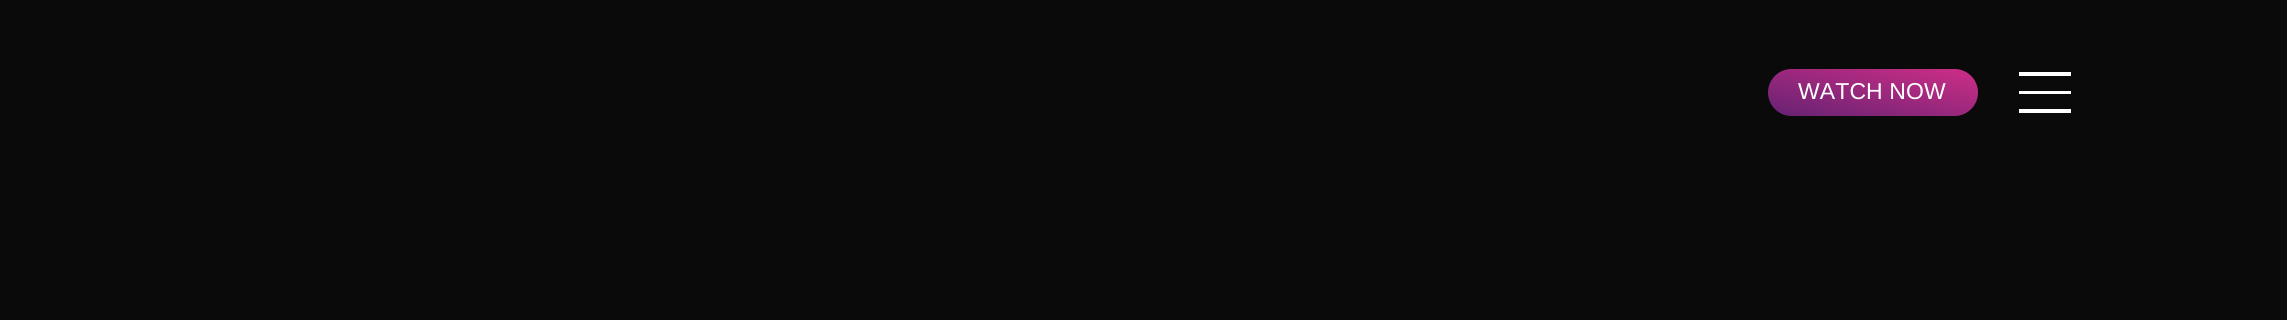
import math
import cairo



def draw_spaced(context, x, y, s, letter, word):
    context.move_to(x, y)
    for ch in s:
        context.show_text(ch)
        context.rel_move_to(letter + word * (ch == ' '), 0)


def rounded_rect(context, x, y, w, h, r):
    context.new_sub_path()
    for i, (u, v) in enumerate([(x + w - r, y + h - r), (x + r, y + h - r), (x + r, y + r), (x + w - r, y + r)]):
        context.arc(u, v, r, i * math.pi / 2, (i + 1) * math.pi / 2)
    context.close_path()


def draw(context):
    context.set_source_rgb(10 / 255, 10 / 255, 10 / 255)
    context.paint()
    gradient = cairo.LinearGradient(1862, 138, 1883, 47)
    gradient.add_color_stop_rgba(0, 101 / 255, 34 / 255, 115 / 255, 1)
    gradient.add_color_stop_rgba(1, 207 / 255, 46 / 255, 135 / 255, 1)
    context.set_source(gradient)
    rounded_rect(context, 1768, 69, 210, 47, 23.5)
    context.fill()
    context.set_source_rgb(1, 1, 1)
    context.new_path()
    context.move_to(2071, 94)
    context.line_to(2071, 91)
    context.line_to(2019, 91)
    context.line_to(2019, 94)
    context.move_to(2071, 113)
    context.line_to(2071, 109)
    context.line_to(2019, 109)
    context.line_to(2019, 113)
    context.move_to(2071, 76)
    context.line_to(2071, 72)
    context.line_to(2019, 72)
    context.line_to(2019, 76)
    context.fill()
    context.select_font_face("Liberation Sans")
    context.set_font_size(23)
    draw_spaced(context, 1798, 99, "WATCH NOW", 0.1, 0)


surface = cairo.ImageSurface(cairo.Format.RGB24, 2287, 320)
context = cairo.Context(surface)
options = cairo.FontOptions()
options.set_hint_metrics(cairo.HintMetrics.OFF)
options.set_hint_style(cairo.HintStyle.NONE)
context.set_font_options(options)
context.set_miter_limit(4)
draw(context)
surface.write_to_png("out.png")
